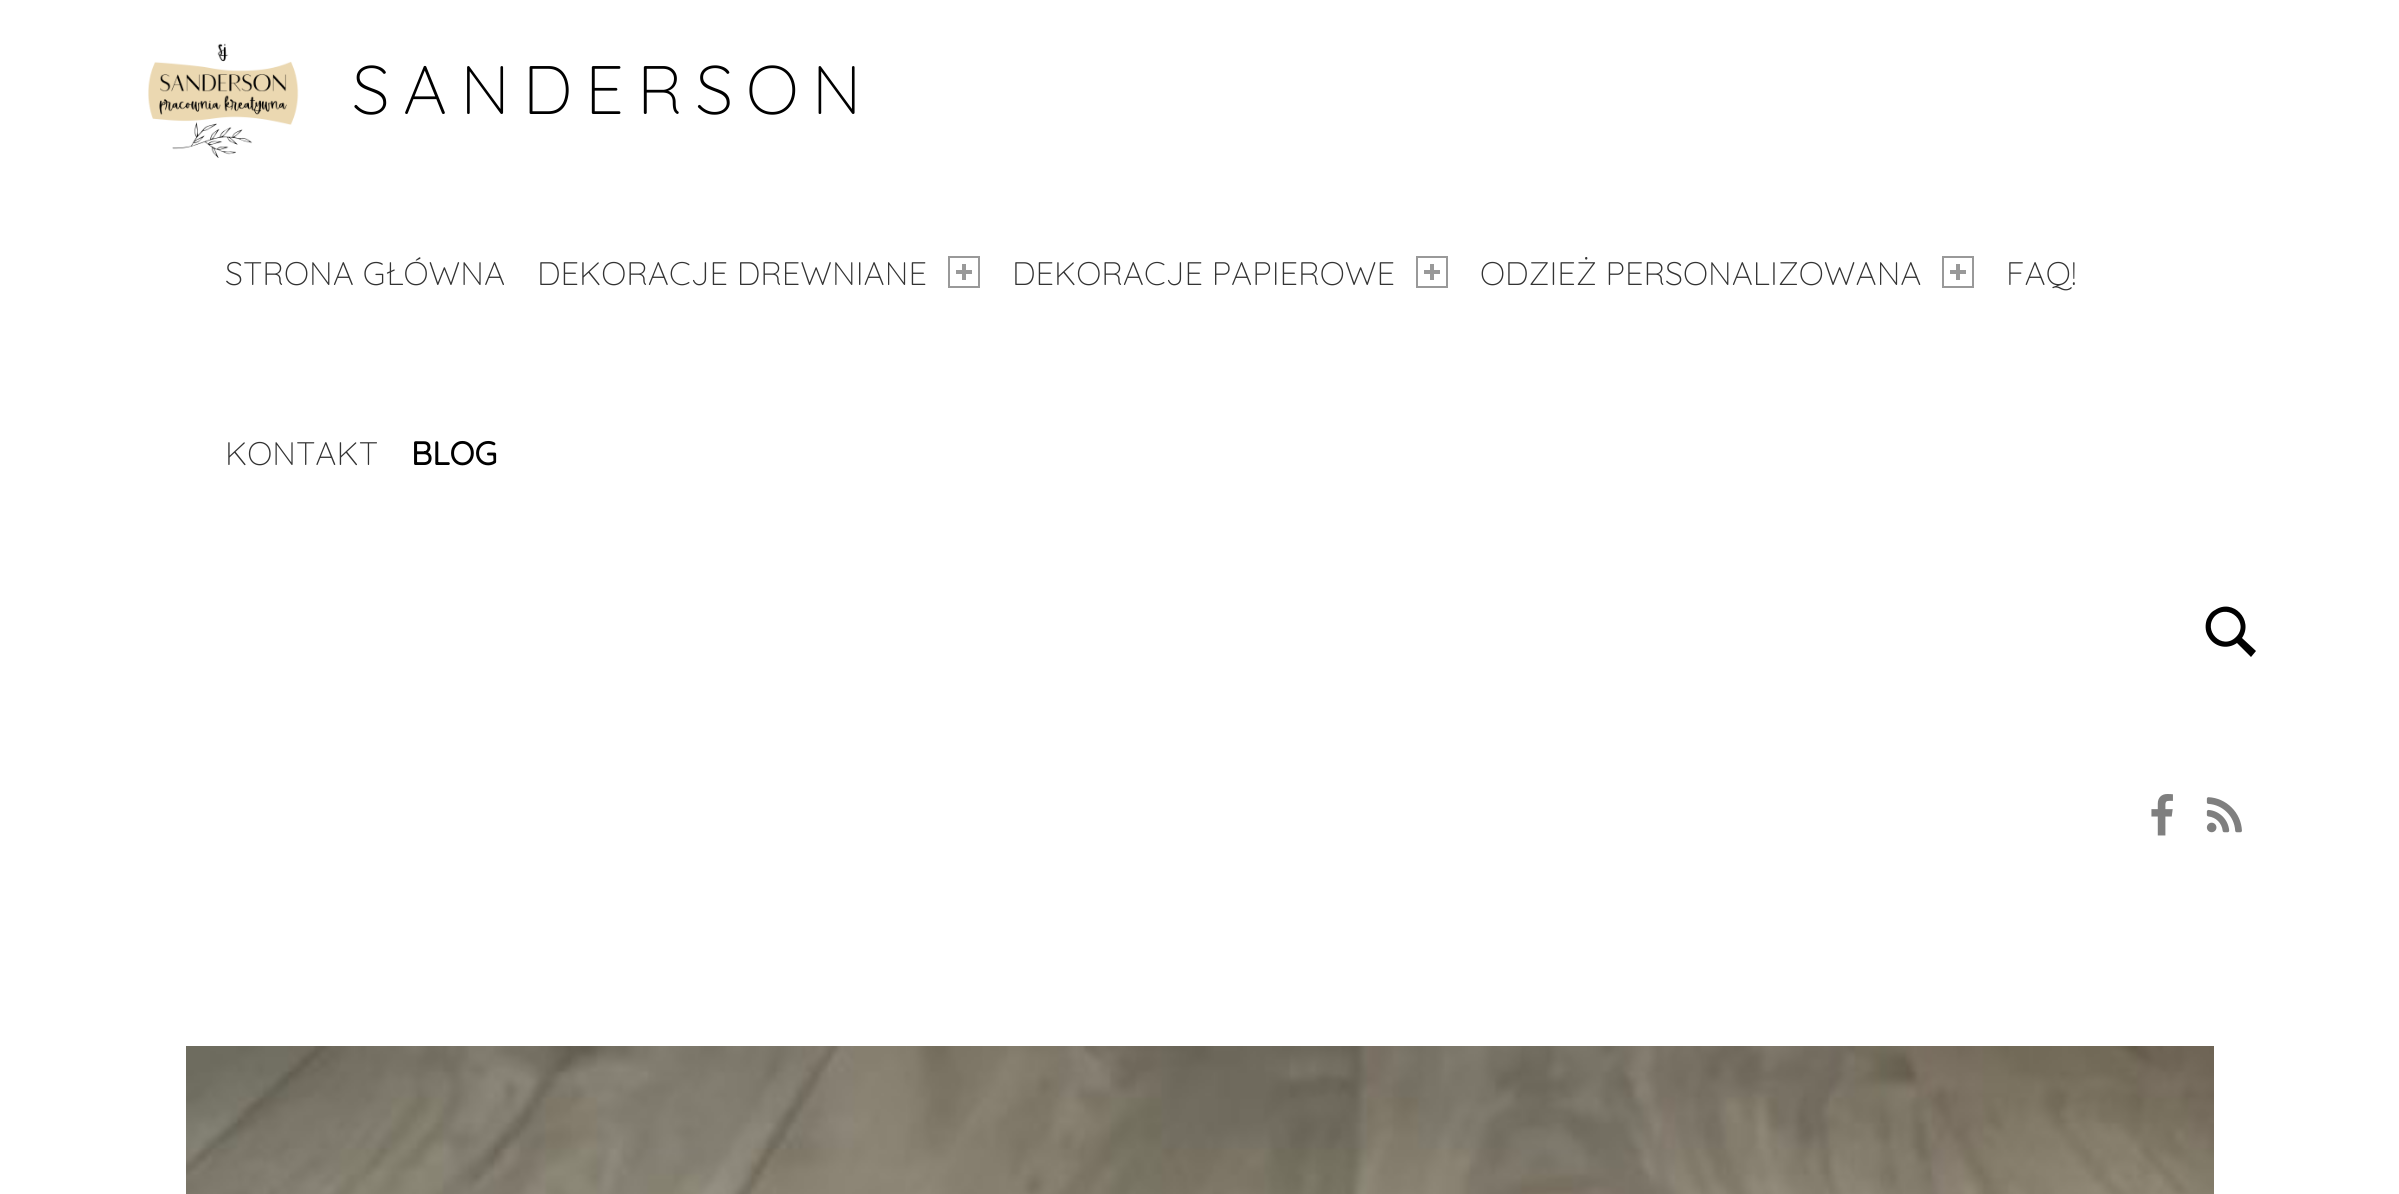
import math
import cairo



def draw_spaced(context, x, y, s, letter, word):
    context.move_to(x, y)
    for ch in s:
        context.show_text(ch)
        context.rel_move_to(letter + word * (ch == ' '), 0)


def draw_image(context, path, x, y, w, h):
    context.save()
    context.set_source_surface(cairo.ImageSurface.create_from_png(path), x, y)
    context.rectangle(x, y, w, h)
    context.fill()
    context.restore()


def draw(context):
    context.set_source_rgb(1, 1, 1)
    context.paint()
    draw_image(context, "images/1.png", 148, 43, 151, 115)
    context.rectangle(949, 257, 30, 30)
    context.set_source_rgb(153 / 255, 153 / 255, 153 / 255)
    context.stroke()
    context.rectangle(956, 270, 16, 4)
    context.fill()
    context.rectangle(962, 264, 4, 16)
    context.fill()
    context.rectangle(1417, 257, 30, 30)
    context.stroke()
    context.rectangle(1424, 270, 16, 4)
    context.fill()
    context.rectangle(1430, 264, 4, 16)
    context.fill()
    context.rectangle(1943, 257, 30, 30)
    context.stroke()
    context.rectangle(1950, 270, 16, 4)
    context.fill()
    context.rectangle(1956, 264, 4, 16)
    context.fill()
    context.set_source_rgb(0, 0, 0)
    context.new_path()
    context.move_to(2256, 651)
    context.line_to(2251, 657)
    context.line_to(2237, 643)
    context.curve_to(2227, 650, 2214, 647, 2208, 636)
    context.curve_to(2205, 631, 2205, 624, 2207, 619)
    context.curve_to(2209, 615, 2211, 612, 2215, 610)
    context.curve_to(2233, 598, 2254, 620, 2242, 638)
    context.close_path()
    context.move_to(2215, 616)
    context.curve_to(2202, 630, 2222, 651, 2236, 637)
    context.curve_to(2250, 623, 2229, 603, 2215, 616)
    context.close_path()
    context.fill()
    draw_image(context, "images/2.png", 2151, 794, 22, 42)
    draw_image(context, "images/3.png", 2206, 797, 36, 36)
    draw_image(context, "images/4.png", 186, 1046, 2028, 148)
    context.select_font_face("Quicksand Light")
    context.set_font_size(68.5)
    draw_spaced(context, 352, 114, "SANDERSON", 13, 0)
    context.set_font_size(32.6)
    context.set_source_rgb(51 / 255, 51 / 255, 51 / 255)
    context.move_to(225, 285)
    context.show_text("STRONA GŁÓWNA")
    context.move_to(537, 285)
    context.show_text("DEKORACJE DREWNIANE")
    context.move_to(1012, 285)
    context.show_text("DEKORACJE PAPIEROWE")
    context.move_to(1480, 285)
    context.show_text("ODZIEŻ PERSONALIZOWANA")
    context.move_to(2006, 285)
    context.show_text("FAQ!")
    context.move_to(225, 465)
    context.show_text("KONTAKT")
    context.select_font_face("Quicksand", cairo.FontSlant.NORMAL, cairo.FontWeight.BOLD)
    context.set_source_rgb(0, 0, 0)
    context.move_to(411, 465)
    context.show_text("BLOG")


surface = cairo.ImageSurface(cairo.Format.RGB24, 2399, 1194)
context = cairo.Context(surface)
options = cairo.FontOptions()
options.set_hint_metrics(cairo.HintMetrics.OFF)
options.set_hint_style(cairo.HintStyle.NONE)
context.set_font_options(options)
context.set_miter_limit(4)
draw(context)
surface.write_to_png("out.png")
